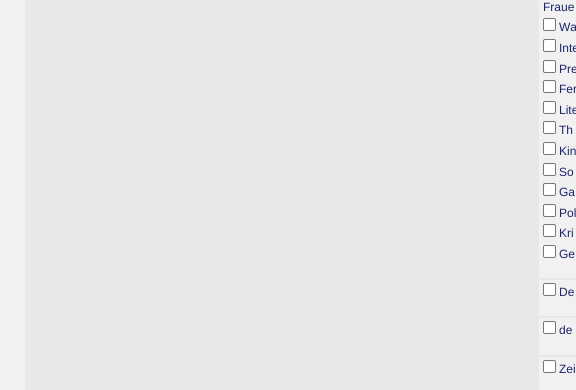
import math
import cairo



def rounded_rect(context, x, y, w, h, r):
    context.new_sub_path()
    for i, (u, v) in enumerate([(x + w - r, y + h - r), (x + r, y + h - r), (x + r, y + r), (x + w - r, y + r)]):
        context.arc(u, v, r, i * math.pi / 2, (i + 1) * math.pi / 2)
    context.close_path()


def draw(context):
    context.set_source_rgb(241 / 255, 241 / 255, 241 / 255)
    context.paint()
    context.set_source_rgb(232 / 255, 232 / 255, 232 / 255)
    context.rectangle(25, 0, 514, 390)
    context.fill()
    context.set_source_rgb(1, 1, 1)
    rounded_rect(context, 543.5, 18.5, 12, 12, 1.5)
    context.fill_preserve()
    context.set_source_rgb(118 / 255, 118 / 255, 118 / 255)
    context.set_line_width(1)
    context.stroke()
    context.set_source_rgb(1, 1, 1)
    rounded_rect(context, 543.5, 39.5, 12, 12, 1.5)
    context.fill_preserve()
    context.set_source_rgb(118 / 255, 118 / 255, 118 / 255)
    context.stroke()
    context.set_source_rgb(1, 1, 1)
    rounded_rect(context, 543.5, 60.5, 12, 12, 1.5)
    context.fill_preserve()
    context.set_source_rgb(118 / 255, 118 / 255, 118 / 255)
    context.stroke()
    context.set_source_rgb(1, 1, 1)
    rounded_rect(context, 543.5, 80.5, 12, 12, 1.5)
    context.fill_preserve()
    context.set_source_rgb(118 / 255, 118 / 255, 118 / 255)
    context.stroke()
    context.set_source_rgb(1, 1, 1)
    rounded_rect(context, 543.5, 101.5, 12, 12, 1.5)
    context.fill_preserve()
    context.set_source_rgb(118 / 255, 118 / 255, 118 / 255)
    context.stroke()
    context.set_source_rgb(1, 1, 1)
    rounded_rect(context, 543.5, 121.5, 12, 12, 1.5)
    context.fill_preserve()
    context.set_source_rgb(118 / 255, 118 / 255, 118 / 255)
    context.stroke()
    context.set_source_rgb(1, 1, 1)
    rounded_rect(context, 543.5, 142.5, 12, 12, 1.5)
    context.fill_preserve()
    context.set_source_rgb(118 / 255, 118 / 255, 118 / 255)
    context.stroke()
    context.set_source_rgb(1, 1, 1)
    rounded_rect(context, 543.5, 163.5, 12, 12, 1.5)
    context.fill_preserve()
    context.set_source_rgb(118 / 255, 118 / 255, 118 / 255)
    context.stroke()
    context.set_source_rgb(1, 1, 1)
    rounded_rect(context, 543.5, 183.5, 12, 12, 1.5)
    context.fill_preserve()
    context.set_source_rgb(118 / 255, 118 / 255, 118 / 255)
    context.stroke()
    context.set_source_rgb(1, 1, 1)
    rounded_rect(context, 543.5, 204.5, 12, 12, 1.5)
    context.fill_preserve()
    context.set_source_rgb(118 / 255, 118 / 255, 118 / 255)
    context.stroke()
    context.set_source_rgb(1, 1, 1)
    rounded_rect(context, 543.5, 224.5, 12, 12, 1.5)
    context.fill_preserve()
    context.set_source_rgb(118 / 255, 118 / 255, 118 / 255)
    context.stroke()
    context.set_source_rgb(1, 1, 1)
    rounded_rect(context, 543.5, 245.5, 12, 12, 1.5)
    context.fill_preserve()
    context.set_source_rgb(118 / 255, 118 / 255, 118 / 255)
    context.stroke()
    context.set_source_rgb(232 / 255, 232 / 255, 232 / 255)
    context.rectangle(539, 278, 37, 2)
    context.fill()
    context.set_source_rgb(1, 1, 1)
    rounded_rect(context, 543.5, 283.5, 12, 12, 1.5)
    context.fill_preserve()
    context.set_source_rgb(118 / 255, 118 / 255, 118 / 255)
    context.stroke()
    context.set_source_rgb(232 / 255, 232 / 255, 232 / 255)
    context.rectangle(539, 316, 37, 2)
    context.fill()
    context.set_source_rgb(1, 1, 1)
    rounded_rect(context, 543.5, 321.5, 12, 12, 1.5)
    context.fill_preserve()
    context.set_source_rgb(118 / 255, 118 / 255, 118 / 255)
    context.stroke()
    context.set_source_rgb(232 / 255, 232 / 255, 232 / 255)
    context.rectangle(539, 355, 37, 2)
    context.fill()
    context.set_source_rgb(1, 1, 1)
    rounded_rect(context, 543.5, 360.5, 12, 12, 1.5)
    context.fill_preserve()
    context.set_source_rgb(118 / 255, 118 / 255, 118 / 255)
    context.stroke()
    context.select_font_face("Liberation Sans")
    context.set_font_size(12)
    context.set_source_rgb(29 / 255, 36 / 255, 108 / 255)
    context.move_to(543, 11)
    context.show_text("Fraue")
    context.move_to(559, 31)
    context.show_text("Wa")
    context.move_to(559, 52)
    context.show_text("Inte")
    context.move_to(559, 73)
    context.show_text("Pre")
    context.move_to(559, 93)
    context.show_text("Fer")
    context.move_to(559, 114)
    context.show_text("Lite")
    context.move_to(559, 134)
    context.show_text("Th")
    context.move_to(559, 155)
    context.show_text("Kin")
    context.move_to(559, 176)
    context.show_text("So")
    context.move_to(559, 196)
    context.show_text("Ga")
    context.move_to(559, 217)
    context.show_text("Pol")
    context.move_to(559, 237)
    context.show_text("Kri")
    context.move_to(559, 258)
    context.show_text("Ge")
    context.move_to(559, 296)
    context.show_text("De")
    context.move_to(559, 334)
    context.show_text("de")
    context.move_to(559, 373)
    context.show_text("Zei")


surface = cairo.ImageSurface(cairo.Format.RGB24, 576, 390)
context = cairo.Context(surface)
options = cairo.FontOptions()
options.set_hint_metrics(cairo.HintMetrics.OFF)
options.set_hint_style(cairo.HintStyle.NONE)
context.set_font_options(options)
context.set_miter_limit(4)
draw(context)
surface.write_to_png("out.png")
